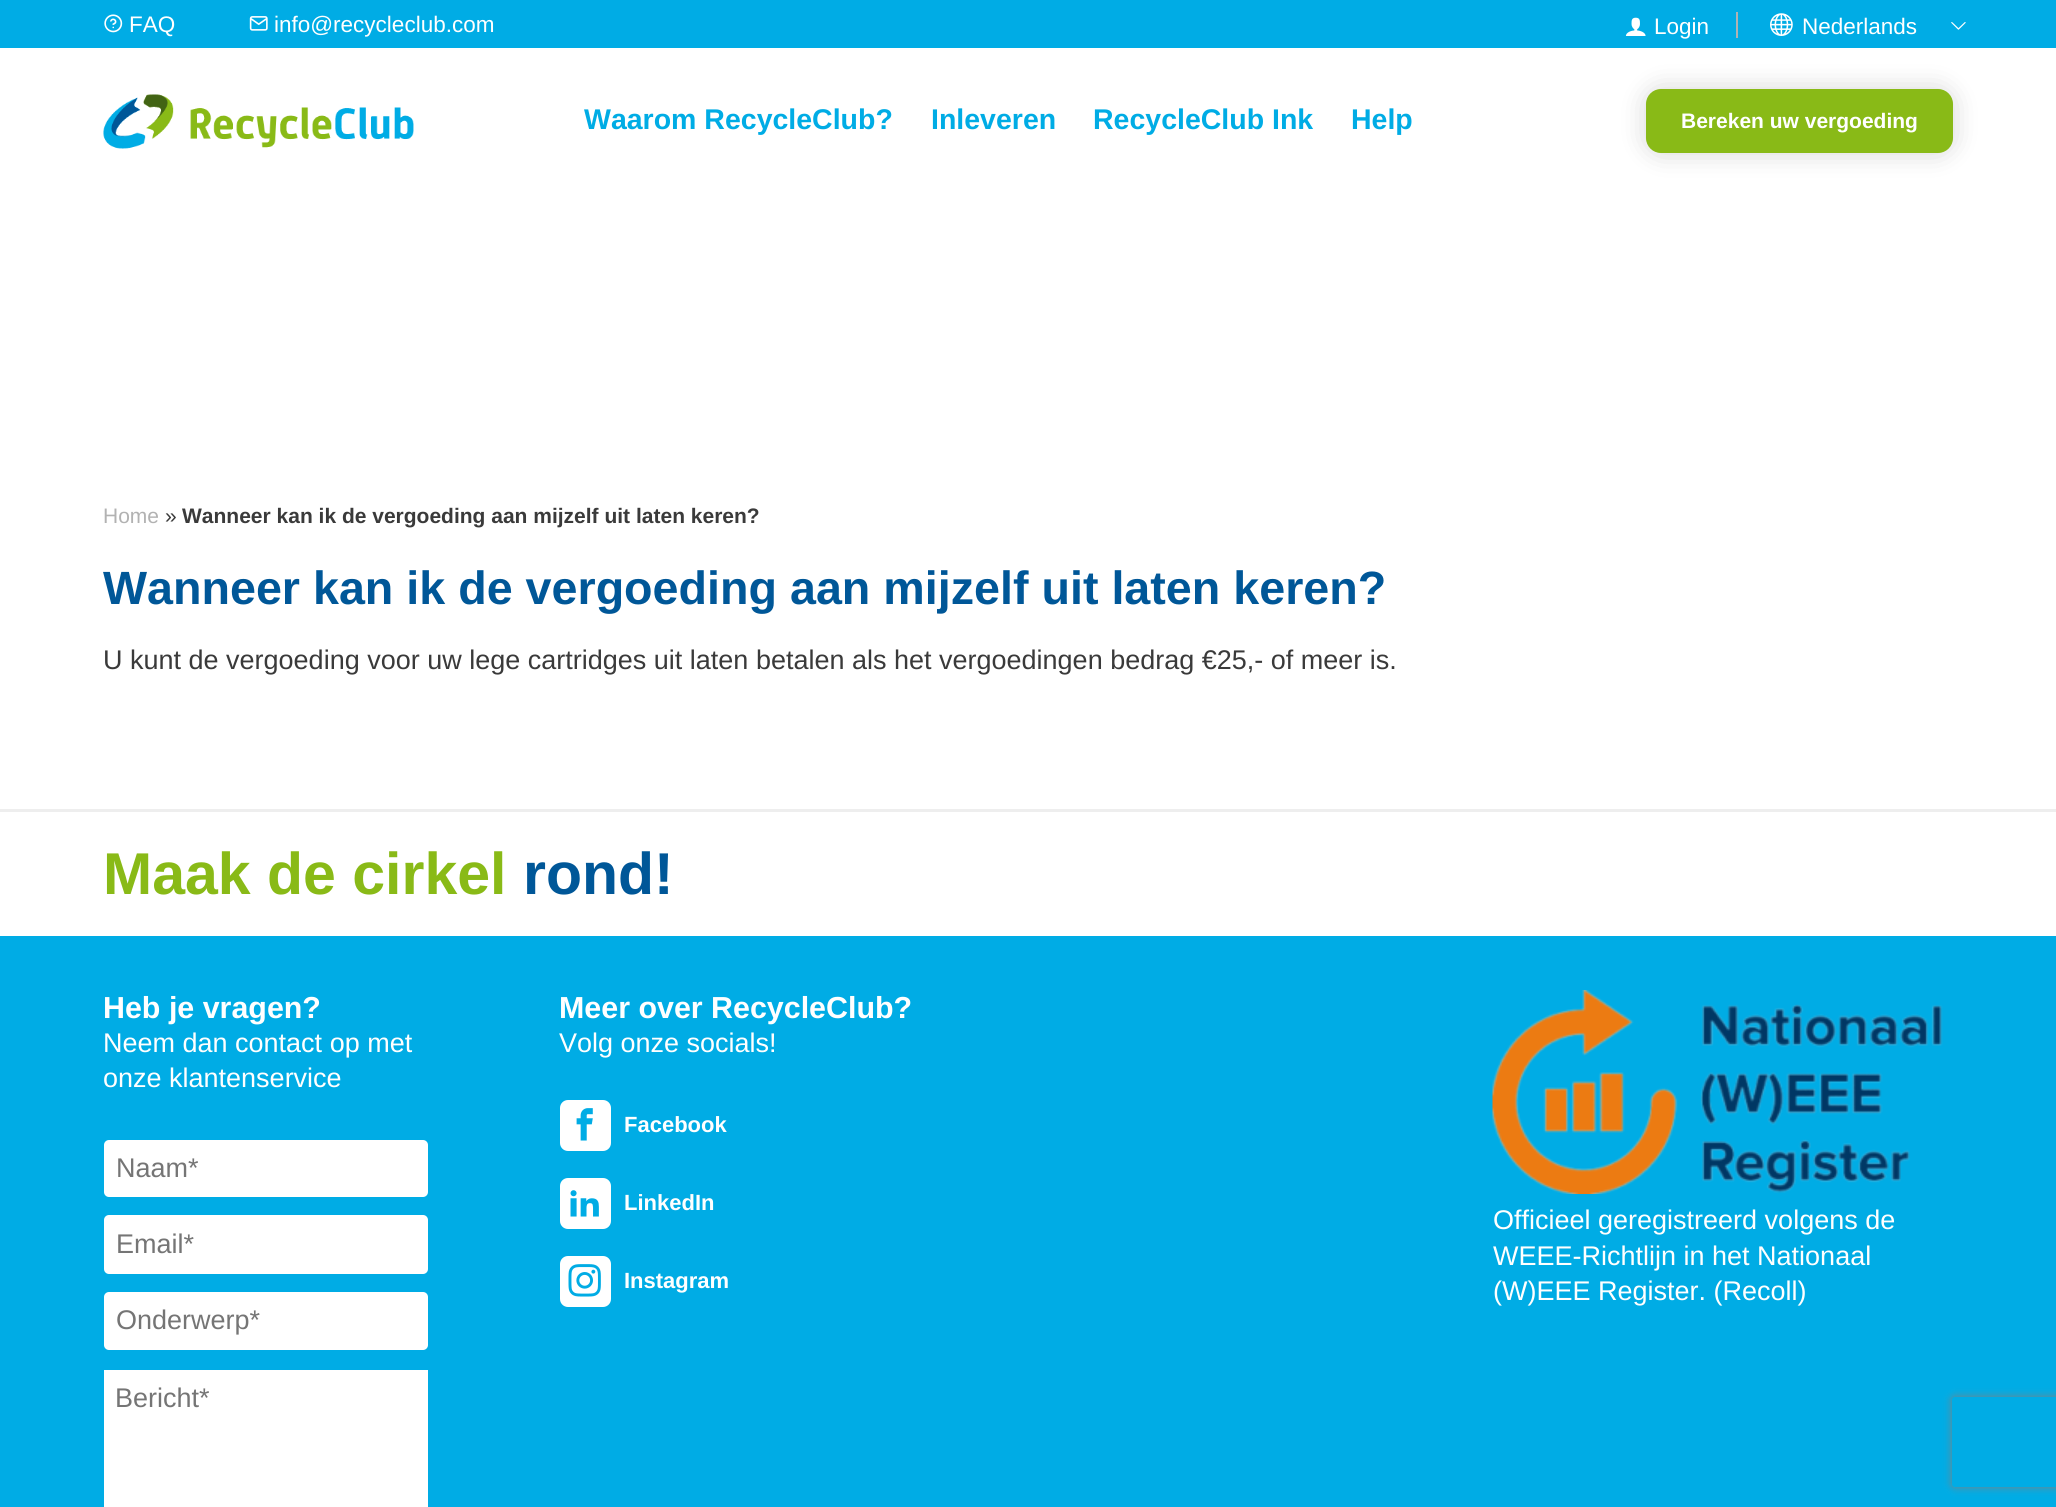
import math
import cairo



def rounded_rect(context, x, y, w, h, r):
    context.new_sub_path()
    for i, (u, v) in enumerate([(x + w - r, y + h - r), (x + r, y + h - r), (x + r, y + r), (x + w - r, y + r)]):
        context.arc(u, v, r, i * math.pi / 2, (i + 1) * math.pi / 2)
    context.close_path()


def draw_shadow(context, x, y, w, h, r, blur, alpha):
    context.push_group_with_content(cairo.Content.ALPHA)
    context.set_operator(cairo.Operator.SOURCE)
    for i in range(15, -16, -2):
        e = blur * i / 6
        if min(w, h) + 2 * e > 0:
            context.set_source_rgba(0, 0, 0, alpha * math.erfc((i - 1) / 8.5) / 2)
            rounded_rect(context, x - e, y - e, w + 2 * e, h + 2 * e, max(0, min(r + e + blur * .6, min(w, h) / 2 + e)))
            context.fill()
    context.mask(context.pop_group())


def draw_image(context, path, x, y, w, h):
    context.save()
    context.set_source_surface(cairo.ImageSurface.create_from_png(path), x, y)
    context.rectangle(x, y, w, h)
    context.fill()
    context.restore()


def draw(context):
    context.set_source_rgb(1, 1, 1)
    context.paint()
    context.set_source_rgb(0, 172 / 255, 229 / 255)
    context.rectangle(0, 0, 2056, 48)
    context.fill()
    draw_image(context, "images/1.png", 104, 14, 19, 19)
    draw_image(context, "images/2.png", 249, 16, 19, 15)
    context.set_source_rgb(178 / 255, 178 / 255, 178 / 255)
    context.rectangle(1736, 12, 2, 26)
    context.fill()
    draw_image(context, "images/3.png", 1625, 17, 21, 19)
    draw_image(context, "images/4.png", 1770, 13, 23, 23)
    draw_image(context, "images/5.png", 1951, 22, 15, 8)
    draw_image(context, "images/6.png", 103, 94, 311, 55)
    context.set_source_rgb(0, 0, 0)
    draw_shadow(context, 1646, 89, 307, 64, 15, 13.5, 0.16)
    context.set_source_rgb(137 / 255, 186 / 255, 23 / 255)
    rounded_rect(context, 1646, 89, 307, 64, 15)
    context.fill()
    context.set_source_rgb(238 / 255, 238 / 255, 238 / 255)
    context.rectangle(0, 809, 2056, 3)
    context.fill()
    context.set_source_rgb(0, 172 / 255, 229 / 255)
    context.rectangle(0, 936, 2056, 571)
    context.fill()
    context.set_source_rgb(1, 1, 1)
    rounded_rect(context, 104, 1140, 324, 57, 5)
    context.fill()
    rounded_rect(context, 104, 1215, 324, 59, 5)
    context.fill()
    rounded_rect(context, 104, 1292, 324, 58, 5)
    context.fill()
    context.rectangle(104, 1370, 324, 137)
    context.fill()
    rounded_rect(context, 560, 1100, 51, 51, 8)
    context.fill()
    draw_image(context, "images/7.png", 576, 1108, 17, 33)
    rounded_rect(context, 560, 1178, 51, 51, 8)
    context.fill()
    draw_image(context, "images/8.png", 570, 1190, 29, 27)
    rounded_rect(context, 560, 1256, 51, 51, 8)
    context.fill()
    draw_image(context, "images/9.png", 568, 1264, 33, 33)
    draw_image(context, "images/10.png", 1492, 990, 451, 204)
    context.save()
    context.set_fill_rule(cairo.FillRule.EVEN_ODD)
    context.new_path()
    context.move_to(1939, 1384)
    context.line_to(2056, 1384)
    context.line_to(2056, 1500)
    context.line_to(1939, 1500)
    context.close_path()
    context.move_to(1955, 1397)
    context.line_to(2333, 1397)
    context.curve_to(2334.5, 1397, 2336, 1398.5, 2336, 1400)
    context.line_to(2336, 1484)
    context.curve_to(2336, 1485.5, 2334.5, 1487, 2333, 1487)
    context.line_to(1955, 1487)
    context.curve_to(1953.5, 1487, 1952, 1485.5, 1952, 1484)
    context.line_to(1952, 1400)
    context.curve_to(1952, 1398.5, 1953.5, 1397, 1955, 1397)
    context.close_path()
    context.clip()
    context.set_source_rgb(128 / 255, 128 / 255, 128 / 255)
    draw_shadow(context, 1952, 1397, 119, 90, 3, 4, 1)
    context.restore()
    context.select_font_face("Liberation Sans")
    context.set_font_size(22.5)
    context.move_to(129, 32)
    context.show_text("FAQ")
    context.move_to(274, 32)
    context.show_text("info@recycleclub.com")
    context.move_to(1654, 34)
    context.show_text("Login")
    context.move_to(1802, 34)
    context.show_text("Nederlands")
    context.select_font_face("Liberation Sans", cairo.FontSlant.NORMAL, cairo.FontWeight.BOLD)
    context.set_font_size(28.5)
    context.set_source_rgb(0, 172 / 255, 229 / 255)
    context.move_to(584, 129)
    context.show_text("Waarom RecycleClub?")
    context.move_to(931, 129)
    context.show_text("Inleveren")
    context.move_to(1093, 129)
    context.show_text("RecycleClub Ink")
    context.move_to(1351, 129)
    context.show_text("Help")
    context.set_font_size(21)
    context.set_source_rgb(1, 1, 1)
    context.move_to(1681, 128)
    context.show_text("Bereken uw vergoeding")
    context.select_font_face("Liberation Sans")
    context.set_source_rgb(178 / 255, 178 / 255, 178 / 255)
    context.move_to(103, 523)
    context.show_text("Home")
    context.set_source_rgb(58 / 255, 58 / 255, 58 / 255)
    context.move_to(165, 523)
    context.show_text("»")
    context.select_font_face("Liberation Sans", cairo.FontSlant.NORMAL, cairo.FontWeight.BOLD)
    context.move_to(182, 523)
    context.show_text("Wanneer kan ik de vergoeding aan mijzelf uit laten keren?")
    context.set_font_size(46.65)
    context.set_source_rgb(0, 87 / 255, 152 / 255)
    context.move_to(103, 604)
    context.show_text("Wanneer kan ik de vergoeding aan mijzelf uit laten keren?")
    context.select_font_face("Liberation Sans")
    context.set_font_size(27)
    context.set_source_rgb(58 / 255, 58 / 255, 58 / 255)
    context.move_to(103, 669)
    context.show_text("U kunt de vergoeding voor uw lege cartridges uit laten betalen als het vergoedingen bedrag €25,- of meer is.")
    context.select_font_face("Liberation Sans", cairo.FontSlant.NORMAL, cairo.FontWeight.BOLD)
    context.set_font_size(59)
    context.set_source_rgb(137 / 255, 186 / 255, 23 / 255)
    context.move_to(103, 894)
    context.show_text("Maak de cirkel")
    context.set_source_rgb(0, 87 / 255, 152 / 255)
    context.move_to(523, 894)
    context.show_text("rond!")
    context.set_font_size(30.4)
    context.set_source_rgb(1, 1, 1)
    context.move_to(103, 1018)
    context.show_text("Heb je vragen?")
    context.select_font_face("Liberation Sans")
    context.set_font_size(27)
    context.move_to(103, 1052)
    context.show_text("Neem dan contact op met")
    context.move_to(103, 1087)
    context.show_text("onze klantenservice")
    context.set_source_rgb(117 / 255, 117 / 255, 117 / 255)
    context.move_to(116, 1177)
    context.show_text("Naam*")
    context.move_to(116, 1253)
    context.show_text("Email*")
    context.move_to(116, 1329)
    context.show_text("Onderwerp*")
    context.move_to(115, 1407)
    context.show_text("Bericht*")
    context.select_font_face("Liberation Sans", cairo.FontSlant.NORMAL, cairo.FontWeight.BOLD)
    context.set_font_size(30.4)
    context.set_source_rgb(1, 1, 1)
    context.move_to(559, 1018)
    context.show_text("Meer over RecycleClub?")
    context.select_font_face("Liberation Sans")
    context.set_font_size(27)
    context.move_to(559, 1052)
    context.show_text("Volg onze socials!")
    context.select_font_face("Liberation Sans", cairo.FontSlant.NORMAL, cairo.FontWeight.BOLD)
    context.set_font_size(22)
    context.move_to(624, 1132)
    context.show_text("Facebook")
    context.move_to(624, 1210)
    context.show_text("LinkedIn")
    context.move_to(624, 1288)
    context.show_text("Instagram")
    context.select_font_face("Liberation Sans")
    context.set_font_size(27)
    context.move_to(1493, 1229)
    context.show_text("Officieel geregistreerd volgens de")
    context.move_to(1493, 1265)
    context.show_text("WEEE-Richtlijn in het Nationaal")
    context.move_to(1493, 1300)
    context.show_text("(W)EEE Register. (Recoll)")


surface = cairo.ImageSurface(cairo.Format.RGB24, 2056, 1507)
context = cairo.Context(surface)
options = cairo.FontOptions()
options.set_hint_metrics(cairo.HintMetrics.OFF)
options.set_hint_style(cairo.HintStyle.NONE)
context.set_font_options(options)
context.set_miter_limit(4)
draw(context)
surface.write_to_png("out.png")
